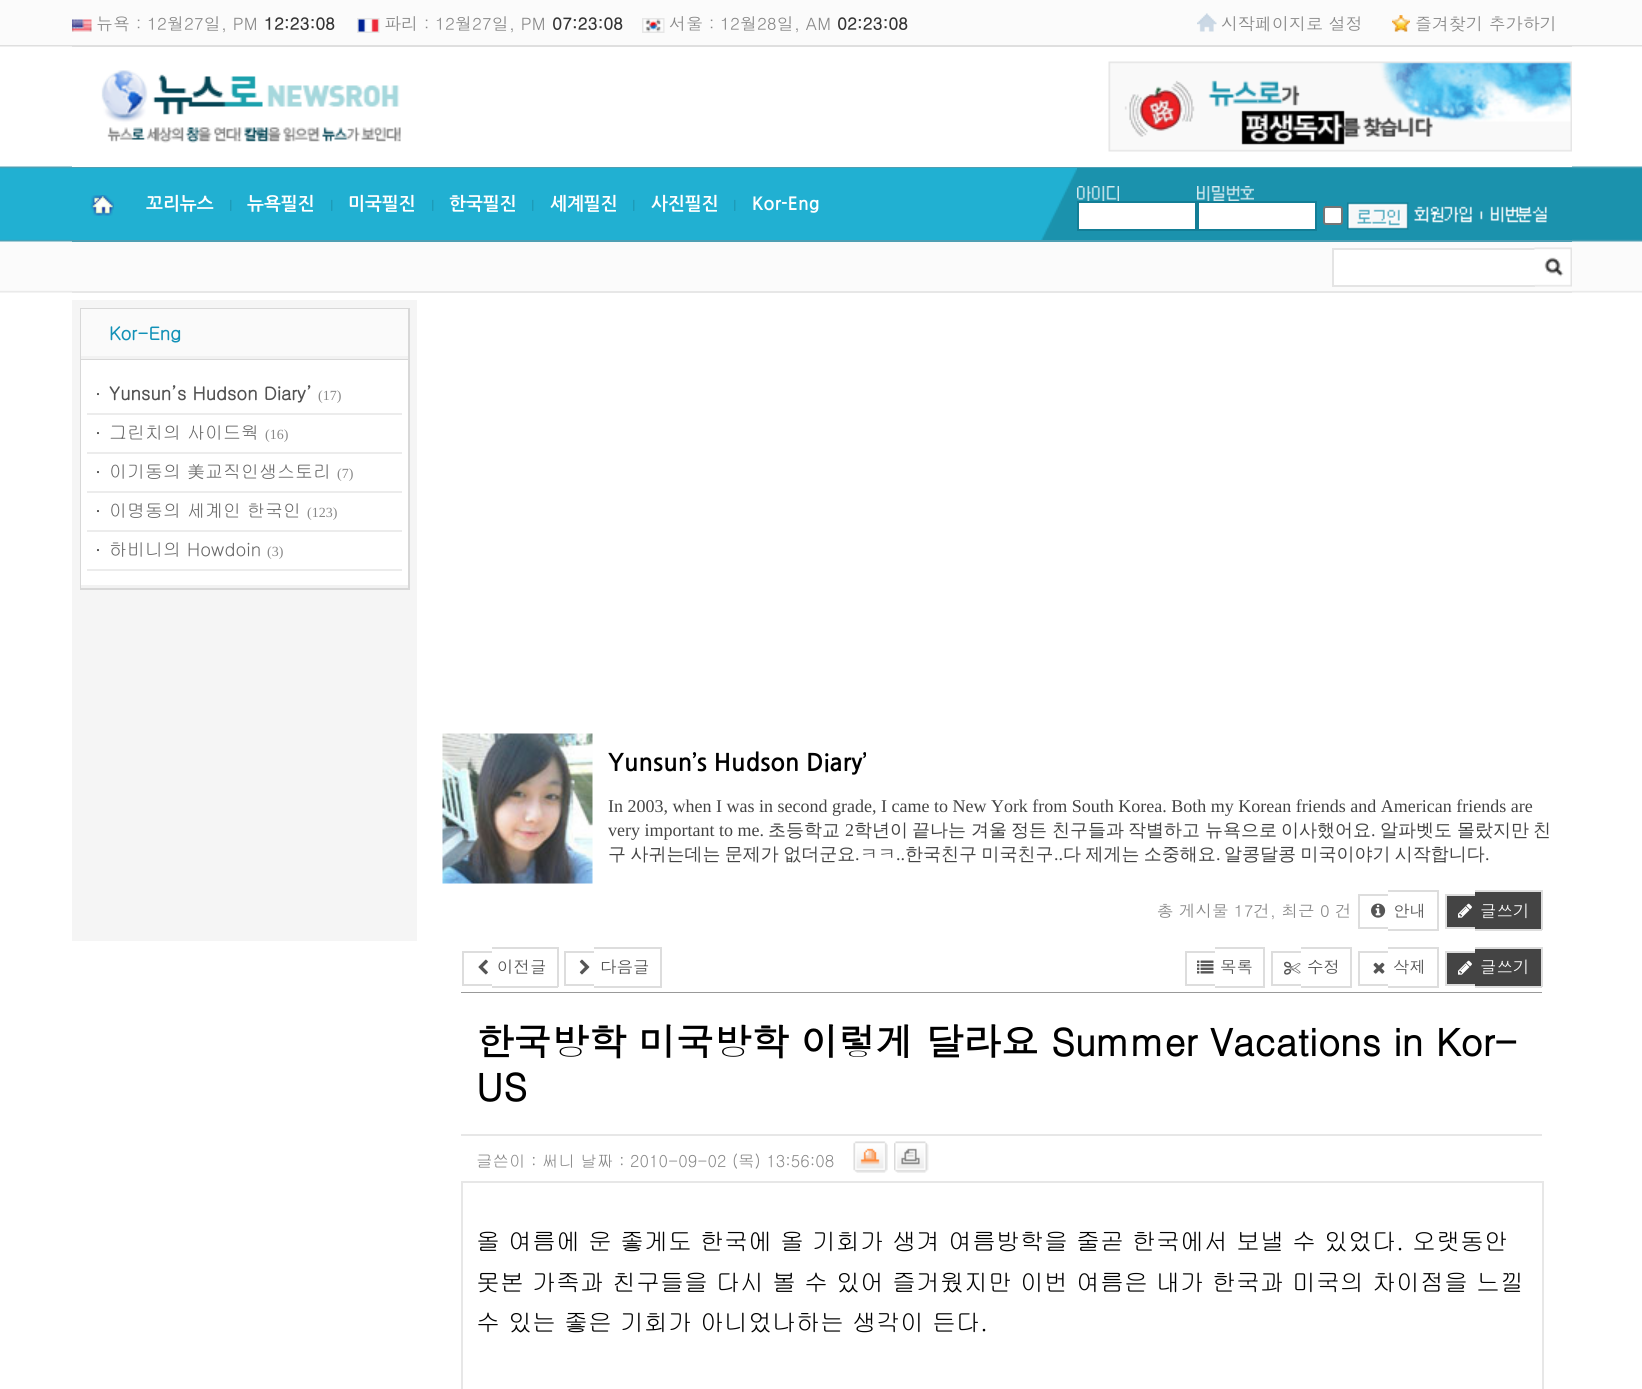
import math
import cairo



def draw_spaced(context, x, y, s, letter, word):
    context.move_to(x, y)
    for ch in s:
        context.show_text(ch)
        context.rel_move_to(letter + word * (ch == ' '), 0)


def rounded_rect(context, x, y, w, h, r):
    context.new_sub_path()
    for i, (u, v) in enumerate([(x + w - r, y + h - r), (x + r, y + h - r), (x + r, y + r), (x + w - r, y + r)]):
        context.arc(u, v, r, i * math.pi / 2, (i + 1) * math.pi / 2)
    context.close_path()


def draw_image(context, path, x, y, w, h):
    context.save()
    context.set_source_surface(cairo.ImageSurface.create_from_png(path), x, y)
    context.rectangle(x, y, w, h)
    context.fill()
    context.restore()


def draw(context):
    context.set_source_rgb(1, 1, 1)
    context.paint()
    context.set_source_rgb(223 / 255, 223 / 255, 223 / 255)
    context.rectangle(0, 45, 1642, 2)
    context.fill()
    context.set_source_rgb(251 / 255, 251 / 255, 251 / 255)
    context.rectangle(0, 0, 1642, 45)
    context.fill()
    draw_image(context, "images/1.png", 72, 19, 20, 13)
    draw_image(context, "images/2.png", 357, 18, 23, 15)
    draw_image(context, "images/3.png", 642, 18, 23, 15)
    draw_image(context, "images/4.png", 1197, 13, 20, 19)
    draw_image(context, "images/5.png", 1392, 15, 18, 17)
    draw_image(context, "images/6.png", 0, 46, 72, 247)
    draw_image(context, "images/7.png", 101, 70, 300, 73)
    draw_image(context, "images/8.png", 1108, 61, 464, 91)
    context.set_source_rgb(78 / 255, 159 / 255, 179 / 255)
    context.rectangle(72, 167, 1500, 1)
    context.fill()
    context.set_source_rgb(33 / 255, 176 / 255, 210 / 255)
    context.rectangle(72, 168, 1005, 72)
    context.fill()
    draw_image(context, "images/9.png", 90, 195, 24, 21)
    draw_image(context, "images/10.png", 1041, 169, 36, 71)
    context.set_source_rgb(27 / 255, 146 / 255, 173 / 255)
    context.rectangle(1077, 168, 495, 72)
    context.fill()
    draw_image(context, "images/11.png", 1077, 186, 42, 15)
    draw_image(context, "images/12.png", 1197, 186, 57, 15)
    context.set_source_rgb(1, 1, 1)
    context.rectangle(1078, 202, 118, 28)
    context.fill_preserve()
    context.set_source_rgb(19 / 255, 126 / 255, 150 / 255)
    context.stroke()
    context.set_source_rgb(1, 1, 1)
    context.rectangle(1198, 202, 118, 28)
    context.fill_preserve()
    context.set_source_rgb(19 / 255, 126 / 255, 150 / 255)
    context.stroke()
    context.set_source_rgb(1, 1, 1)
    rounded_rect(context, 1324, 207, 18, 17, 2)
    context.fill_preserve()
    context.set_source_rgb(118 / 255, 118 / 255, 118 / 255)
    context.stroke()
    draw_image(context, "images/13.png", 1347, 202, 62, 28)
    draw_image(context, "images/14.png", 1408, 203, 64, 26)
    draw_image(context, "images/15.png", 1480, 211, 3, 9)
    draw_image(context, "images/16.png", 1490, 206, 57, 17)
    context.set_source_rgb(78 / 255, 159 / 255, 179 / 255)
    context.rectangle(72, 240, 1500, 2)
    context.fill()
    context.set_source_rgb(251 / 255, 251 / 255, 251 / 255)
    context.rectangle(72, 242, 1500, 49)
    context.fill()
    context.set_source_rgb(231 / 255, 231 / 255, 231 / 255)
    context.rectangle(72, 291, 1500, 2)
    context.fill()
    context.set_source_rgb(1, 1, 1)
    context.rectangle(1334, 250, 201, 35)
    context.fill()
    context.set_source_rgb(228 / 255, 228 / 255, 228 / 255)
    context.rectangle(1332, 248, 203, 2)
    context.fill()
    context.rectangle(1332, 285, 203, 2)
    context.fill()
    context.rectangle(1332, 248, 2, 39)
    context.fill()
    draw_image(context, "images/17.png", 1534, 247, 38, 40)
    draw_image(context, "images/18.png", 1572, 46, 70, 247)
    context.set_source_rgb(245 / 255, 245 / 255, 245 / 255)
    context.rectangle(72, 300, 345, 641)
    context.fill()
    context.set_source_rgb(216 / 255, 216 / 255, 216 / 255)
    context.rectangle(80, 308, 330, 282)
    context.fill()
    context.set_source_rgb(250 / 255, 250 / 255, 250 / 255)
    context.rectangle(81, 309, 327, 47)
    context.fill()
    context.set_source_rgb(242 / 255, 242 / 255, 242 / 255)
    context.rectangle(81, 356, 327, 3)
    context.fill()
    context.set_source_rgb(1, 1, 1)
    context.rectangle(81, 360, 327, 225)
    context.fill()
    context.set_source_rgb(242 / 255, 242 / 255, 242 / 255)
    context.rectangle(81, 585, 327, 3)
    context.fill()
    context.set_source_rgb(236 / 255, 236 / 255, 236 / 255)
    context.rectangle(87, 413, 315, 2)
    context.fill()
    context.rectangle(87, 452, 315, 2)
    context.fill()
    context.rectangle(87, 491, 315, 2)
    context.fill()
    context.rectangle(87, 530, 315, 2)
    context.fill()
    context.rectangle(87, 569, 315, 2)
    context.fill()
    draw_image(context, "images/19.png", 442, 733, 151, 151)
    context.set_source_rgb(221 / 255, 221 / 255, 221 / 255)
    context.rectangle(1358, 894, 30, 2)
    context.fill()
    context.rectangle(1358, 927, 30, 2)
    context.fill()
    context.rectangle(1358, 894, 2, 35)
    context.fill()
    context.rectangle(1388, 890, 51, 2)
    context.fill()
    context.rectangle(1437, 890, 2, 40)
    context.fill()
    context.rectangle(1388, 929, 51, 2)
    context.fill()
    draw_image(context, "images/20.png", 1371, 903, 15, 15)
    context.set_source_rgb(68 / 255, 68 / 255, 68 / 255)
    context.rectangle(1447, 896, 28, 31)
    context.fill()
    context.set_source_rgb(221 / 255, 221 / 255, 221 / 255)
    context.rectangle(1445, 894, 30, 2)
    context.fill()
    context.rectangle(1445, 927, 30, 2)
    context.fill()
    context.rectangle(1445, 894, 2, 35)
    context.fill()
    context.set_source_rgb(68 / 255, 68 / 255, 68 / 255)
    context.rectangle(1475, 892, 66, 37)
    context.fill()
    context.set_source_rgb(221 / 255, 221 / 255, 221 / 255)
    context.rectangle(1475, 890, 67, 2)
    context.fill()
    context.rectangle(1541, 890, 2, 40)
    context.fill()
    context.rectangle(1475, 929, 67, 2)
    context.fill()
    draw_image(context, "images/21.png", 1458, 903, 14, 15)
    context.rectangle(462, 951, 30, 2)
    context.fill()
    context.rectangle(462, 984, 30, 2)
    context.fill()
    context.rectangle(462, 951, 2, 35)
    context.fill()
    context.rectangle(492, 947, 66, 2)
    context.fill()
    context.rectangle(557, 947, 2, 40)
    context.fill()
    context.rectangle(492, 986, 66, 2)
    context.fill()
    draw_image(context, "images/22.png", 478, 959, 10, 16)
    context.rectangle(564, 951, 30, 2)
    context.fill()
    context.rectangle(564, 984, 30, 2)
    context.fill()
    context.rectangle(564, 951, 2, 35)
    context.fill()
    context.rectangle(594, 947, 68, 2)
    context.fill()
    context.rectangle(660, 947, 2, 40)
    context.fill()
    context.rectangle(594, 986, 68, 2)
    context.fill()
    draw_image(context, "images/23.png", 579, 959, 11, 16)
    context.rectangle(1185, 951, 30, 2)
    context.fill()
    context.rectangle(1185, 984, 30, 2)
    context.fill()
    context.rectangle(1185, 951, 2, 35)
    context.fill()
    context.rectangle(1215, 947, 50, 2)
    context.fill()
    context.rectangle(1263, 947, 2, 40)
    context.fill()
    context.rectangle(1215, 986, 50, 2)
    context.fill()
    draw_image(context, "images/24.png", 1197, 960, 17, 14)
    context.rectangle(1271, 951, 30, 2)
    context.fill()
    context.rectangle(1271, 984, 30, 2)
    context.fill()
    context.rectangle(1271, 951, 2, 35)
    context.fill()
    context.rectangle(1301, 947, 51, 2)
    context.fill()
    context.rectangle(1350, 947, 2, 40)
    context.fill()
    context.rectangle(1301, 986, 51, 2)
    context.fill()
    draw_image(context, "images/25.png", 1284, 961, 17, 14)
    context.rectangle(1358, 951, 30, 2)
    context.fill()
    context.rectangle(1358, 984, 30, 2)
    context.fill()
    context.rectangle(1358, 951, 2, 35)
    context.fill()
    context.rectangle(1388, 947, 51, 2)
    context.fill()
    context.rectangle(1437, 947, 2, 40)
    context.fill()
    context.rectangle(1388, 986, 51, 2)
    context.fill()
    draw_image(context, "images/26.png", 1373, 962, 12, 12)
    context.set_source_rgb(68 / 255, 68 / 255, 68 / 255)
    context.rectangle(1447, 953, 28, 31)
    context.fill()
    context.set_source_rgb(221 / 255, 221 / 255, 221 / 255)
    context.rectangle(1445, 951, 30, 2)
    context.fill()
    context.rectangle(1445, 984, 30, 2)
    context.fill()
    context.rectangle(1445, 951, 2, 35)
    context.fill()
    context.set_source_rgb(68 / 255, 68 / 255, 68 / 255)
    context.rectangle(1475, 949, 66, 37)
    context.fill()
    context.set_source_rgb(221 / 255, 221 / 255, 221 / 255)
    context.rectangle(1475, 947, 67, 2)
    context.fill()
    context.rectangle(1541, 947, 2, 40)
    context.fill()
    context.rectangle(1475, 986, 67, 2)
    context.fill()
    draw_image(context, "images/21.png", 1458, 960, 14, 15)
    context.set_source_rgb(153 / 255, 153 / 255, 153 / 255)
    context.rectangle(461, 992, 1081, 1)
    context.fill()
    context.set_source_rgb(231 / 255, 231 / 255, 231 / 255)
    context.rectangle(461, 1134, 1081, 2)
    context.fill()
    draw_image(context, "images/27.png", 853, 1141, 35, 32)
    draw_image(context, "images/28.png", 894, 1141, 35, 32)
    context.rectangle(461, 1181, 1083, 2)
    context.fill()
    context.rectangle(1542, 1181, 2, 208)
    context.fill()
    context.rectangle(461, 1181, 2, 208)
    context.fill()
    context.select_font_face("Dotum")
    context.set_font_size(17)
    context.set_source_rgb(136 / 255, 136 / 255, 136 / 255)
    context.move_to(96, 30)
    context.show_text("뉴욕 : 12월27일, PM")
    context.select_font_face("Dotum", cairo.FontSlant.NORMAL, cairo.FontWeight.BOLD)
    context.set_source_rgb(51 / 255, 51 / 255, 51 / 255)
    context.move_to(264, 30)
    context.show_text("12:23:08")
    context.select_font_face("Dotum")
    context.set_source_rgb(136 / 255, 136 / 255, 136 / 255)
    context.move_to(384, 30)
    context.show_text("파리 : 12월27일, PM")
    context.select_font_face("Dotum", cairo.FontSlant.NORMAL, cairo.FontWeight.BOLD)
    context.set_source_rgb(51 / 255, 51 / 255, 51 / 255)
    context.move_to(552, 30)
    context.show_text("07:23:08")
    context.select_font_face("Dotum")
    context.set_source_rgb(136 / 255, 136 / 255, 136 / 255)
    context.move_to(669, 30)
    context.show_text("서울 : 12월28일, AM")
    context.select_font_face("Dotum", cairo.FontSlant.NORMAL, cairo.FontWeight.BOLD)
    context.set_source_rgb(51 / 255, 51 / 255, 51 / 255)
    context.move_to(837, 30)
    context.show_text("02:23:08")
    context.select_font_face("Dotum")
    context.set_source_rgb(136 / 255, 136 / 255, 136 / 255)
    context.move_to(1221, 30)
    context.show_text("시작페이지로 설정")
    context.move_to(1415, 30)
    context.show_text("즐겨찾기 추가하기")
    context.select_font_face("NanumGothic", cairo.FontSlant.NORMAL, cairo.FontWeight.BOLD)
    context.set_font_size(18)
    context.set_source_rgb(1, 1, 1)
    context.move_to(146, 210)
    context.show_text("꼬리뉴스")
    context.select_font_face("NanumGothic")
    context.set_font_size(14)
    context.set_source_rgb(27 / 255, 146 / 255, 173 / 255)
    context.move_to(229, 211)
    context.show_text("l")
    context.select_font_face("NanumGothic", cairo.FontSlant.NORMAL, cairo.FontWeight.BOLD)
    context.set_font_size(18)
    context.set_source_rgb(1, 1, 1)
    context.move_to(247, 210)
    context.show_text("뉴욕필진")
    context.select_font_face("NanumGothic")
    context.set_font_size(14)
    context.set_source_rgb(27 / 255, 146 / 255, 173 / 255)
    context.move_to(330, 211)
    context.show_text("l")
    context.select_font_face("NanumGothic", cairo.FontSlant.NORMAL, cairo.FontWeight.BOLD)
    context.set_font_size(18)
    context.set_source_rgb(1, 1, 1)
    context.move_to(348, 210)
    context.show_text("미국필진")
    context.select_font_face("NanumGothic")
    context.set_font_size(14)
    context.set_source_rgb(27 / 255, 146 / 255, 173 / 255)
    context.move_to(431, 211)
    context.show_text("l")
    context.select_font_face("NanumGothic", cairo.FontSlant.NORMAL, cairo.FontWeight.BOLD)
    context.set_font_size(18)
    context.set_source_rgb(1, 1, 1)
    context.move_to(449, 210)
    context.show_text("한국필진")
    context.select_font_face("NanumGothic")
    context.set_font_size(14)
    context.set_source_rgb(27 / 255, 146 / 255, 173 / 255)
    context.move_to(531, 211)
    context.show_text("l")
    context.select_font_face("NanumGothic", cairo.FontSlant.NORMAL, cairo.FontWeight.BOLD)
    context.set_font_size(18)
    context.set_source_rgb(1, 1, 1)
    context.move_to(550, 210)
    context.show_text("세계필진")
    context.select_font_face("NanumGothic")
    context.set_font_size(14)
    context.set_source_rgb(27 / 255, 146 / 255, 173 / 255)
    context.move_to(632, 211)
    context.show_text("l")
    context.select_font_face("NanumGothic", cairo.FontSlant.NORMAL, cairo.FontWeight.BOLD)
    context.set_font_size(18)
    context.set_source_rgb(1, 1, 1)
    context.move_to(651, 210)
    context.show_text("사진필진")
    context.select_font_face("NanumGothic")
    context.set_font_size(14)
    context.set_source_rgb(27 / 255, 146 / 255, 173 / 255)
    context.move_to(733, 211)
    context.show_text("l")
    context.select_font_face("NanumGothic", cairo.FontSlant.NORMAL, cairo.FontWeight.BOLD)
    context.set_font_size(18)
    context.set_source_rgb(1, 1, 1)
    context.move_to(752, 210)
    context.show_text("Kor-Eng")
    context.select_font_face("Gulim", cairo.FontSlant.NORMAL, cairo.FontWeight.BOLD)
    context.set_source_rgb(18 / 255, 145 / 255, 183 / 255)
    context.move_to(109, 340)
    context.show_text("Kor-Eng")
    context.select_font_face("Liberation Serif")
    context.set_source_rgb(68 / 255, 68 / 255, 68 / 255)
    context.move_to(95, 400)
    context.show_text("·")
    context.select_font_face("Gulim", cairo.FontSlant.NORMAL, cairo.FontWeight.BOLD)
    context.set_source_rgb(82 / 255, 82 / 255, 82 / 255)
    context.move_to(109, 400)
    context.show_text("Yunsun’s Hudson Diary’")
    context.select_font_face("Liberation Serif")
    context.set_font_size(14)
    context.set_source_rgb(136 / 255, 136 / 255, 136 / 255)
    context.move_to(318, 400)
    context.show_text("(17)")
    context.set_font_size(18)
    context.set_source_rgb(68 / 255, 68 / 255, 68 / 255)
    context.move_to(95, 439)
    context.show_text("·")
    context.select_font_face("Gulim")
    context.set_source_rgb(102 / 255, 102 / 255, 102 / 255)
    context.move_to(109, 439)
    context.show_text("그린치의 사이드웍")
    context.select_font_face("Liberation Serif")
    context.set_font_size(14)
    context.set_source_rgb(136 / 255, 136 / 255, 136 / 255)
    context.move_to(265, 439)
    context.show_text("(16)")
    context.set_font_size(18)
    context.set_source_rgb(68 / 255, 68 / 255, 68 / 255)
    context.move_to(95, 478)
    context.show_text("·")
    context.select_font_face("Gulim")
    context.set_source_rgb(102 / 255, 102 / 255, 102 / 255)
    context.move_to(109, 478)
    context.show_text("이기동의 美교직인생스토리")
    context.select_font_face("Liberation Serif")
    context.set_font_size(14)
    context.set_source_rgb(136 / 255, 136 / 255, 136 / 255)
    context.move_to(337, 478)
    context.show_text("(7)")
    context.set_font_size(18)
    context.set_source_rgb(68 / 255, 68 / 255, 68 / 255)
    context.move_to(95, 517)
    context.show_text("·")
    context.select_font_face("Gulim")
    context.set_source_rgb(102 / 255, 102 / 255, 102 / 255)
    context.move_to(109, 517)
    context.show_text("이명동의 세계인 한국인")
    context.select_font_face("Liberation Serif")
    context.set_font_size(14)
    context.set_source_rgb(136 / 255, 136 / 255, 136 / 255)
    context.move_to(307, 517)
    context.show_text("(123)")
    context.set_font_size(18)
    context.set_source_rgb(68 / 255, 68 / 255, 68 / 255)
    context.move_to(95, 556)
    context.show_text("·")
    context.select_font_face("Gulim")
    context.set_source_rgb(102 / 255, 102 / 255, 102 / 255)
    context.move_to(109, 556)
    context.show_text("하비니의 Howdoin")
    context.select_font_face("Liberation Serif")
    context.set_font_size(14)
    context.set_source_rgb(136 / 255, 136 / 255, 136 / 255)
    context.move_to(267, 556)
    context.show_text("(3)")
    context.select_font_face("NanumGothic", cairo.FontSlant.NORMAL, cairo.FontWeight.BOLD)
    context.set_font_size(24)
    context.set_source_rgb(0, 0, 0)
    context.move_to(608, 771)
    context.show_text("Yunsun’s Hudson Diary’")
    context.select_font_face("Liberation Serif")
    context.set_font_size(18)
    context.set_source_rgb(68 / 255, 68 / 255, 68 / 255)
    context.move_to(608, 812)
    context.show_text("In 2003, when I was in second grade, I came to New York from South Korea. Both my Korean friends and American friends are")
    context.move_to(608, 836)
    context.show_text("very important to me.")
    context.select_font_face("WenQuanYi Zen Hei Medium")
    context.move_to(768, 836)
    context.show_text("초등학교")
    context.select_font_face("Liberation Serif")
    context.move_to(845, 836)
    context.show_text("2")
    context.select_font_face("WenQuanYi Zen Hei Medium")
    context.move_to(854, 836)
    context.show_text("학년이")
    context.move_to(912, 836)
    context.show_text("끝나는")
    context.move_to(971, 836)
    context.show_text("겨울")
    context.move_to(1011, 836)
    context.show_text("정든")
    context.move_to(1052, 836)
    context.show_text("친구들과")
    context.move_to(1128, 836)
    context.show_text("작별하고")
    context.move_to(1205, 836)
    context.show_text("뉴욕으로")
    context.move_to(1281, 836)
    context.show_text("이사했어요")
    context.select_font_face("Liberation Serif")
    context.move_to(1371, 836)
    context.show_text(".")
    context.select_font_face("WenQuanYi Zen Hei Medium")
    context.move_to(1380, 836)
    context.show_text("알파벳도")
    context.move_to(1457, 836)
    context.show_text("몰랐지만")
    context.move_to(1533, 836)
    context.show_text("친")
    draw_spaced(context, 608, 860, "구 사귀는데는 문제가 없더군요", 0, -1)
    context.move_to(860, 860)
    context.show_text("ㅋㅋ")
    draw_spaced(context, 905, 860, "한국친구 미국친구", 0, -1)
    draw_spaced(context, 1063, 860, "다 제게는 소중해요", 0, -1)
    draw_spaced(context, 1224, 860, "알콩달콩 미국이야기 시작합니다", 0, -1)
    context.select_font_face("Liberation Serif")
    context.move_to(855, 860)
    context.show_text(".")
    context.move_to(896, 860)
    context.show_text("..")
    context.move_to(1054, 860)
    context.show_text("..")
    context.move_to(1216, 860)
    context.show_text(".")
    context.move_to(1485, 860)
    context.show_text(".")
    context.select_font_face("Dotum")
    context.set_font_size(16.5)
    context.set_source_rgb(136 / 255, 136 / 255, 136 / 255)
    context.move_to(1157, 917)
    context.show_text("총 게시물 17건, 최근 0 건")
    context.set_source_rgb(82 / 255, 82 / 255, 82 / 255)
    context.move_to(1393, 917)
    context.show_text("안내")
    context.set_source_rgb(1, 1, 1)
    context.move_to(1480, 917)
    context.show_text("글쓰기")
    context.set_source_rgb(82 / 255, 82 / 255, 82 / 255)
    context.move_to(497, 973)
    context.show_text("이전글")
    context.move_to(600, 973)
    context.show_text("다음글")
    context.move_to(1220, 973)
    context.show_text("목록")
    context.move_to(1307, 973)
    context.show_text("수정")
    context.move_to(1393, 973)
    context.show_text("삭제")
    context.set_source_rgb(1, 1, 1)
    context.move_to(1480, 973)
    context.show_text("글쓰기")
    context.select_font_face("Dotum", cairo.FontSlant.NORMAL, cairo.FontWeight.BOLD)
    context.set_font_size(37.5)
    context.set_source_rgb(0, 0, 0)
    context.move_to(476, 1056)
    context.show_text("한국방학 미국방학 이렇게 달라요 Summer Vacations in Kor-")
    context.move_to(476, 1101)
    context.show_text("US")
    context.select_font_face("Gulim")
    context.set_font_size(16.5)
    context.set_source_rgb(136 / 255, 136 / 255, 136 / 255)
    context.move_to(476, 1167)
    context.show_text("글쓴이 : 써니 날짜 : 2010-09-02 (목) 13:56:08")
    context.set_font_size(24)
    context.set_source_rgb(0, 0, 0)
    context.move_to(476, 1250)
    context.show_text("올 여름에 운 좋게도 한국에 올 기회가 생겨 여름방학을 줄곧 한국에서 보낼 수 있었다. 오랫동안")
    context.move_to(476, 1291)
    context.show_text("못본 가족과 친구들을 다시 볼 수 있어 즐거웠지만 이번 여름은 내가 한국과 미국의 차이점을 느낄")
    context.move_to(476, 1331)
    context.show_text("수 있는 좋은 기회가 아니었나하는 생각이 든다.")


surface = cairo.ImageSurface(cairo.Format.RGB24, 1642, 1389)
context = cairo.Context(surface)
options = cairo.FontOptions()
options.set_hint_metrics(cairo.HintMetrics.OFF)
options.set_hint_style(cairo.HintStyle.NONE)
context.set_font_options(options)
context.set_miter_limit(4)
draw(context)
surface.write_to_png("out.png")
